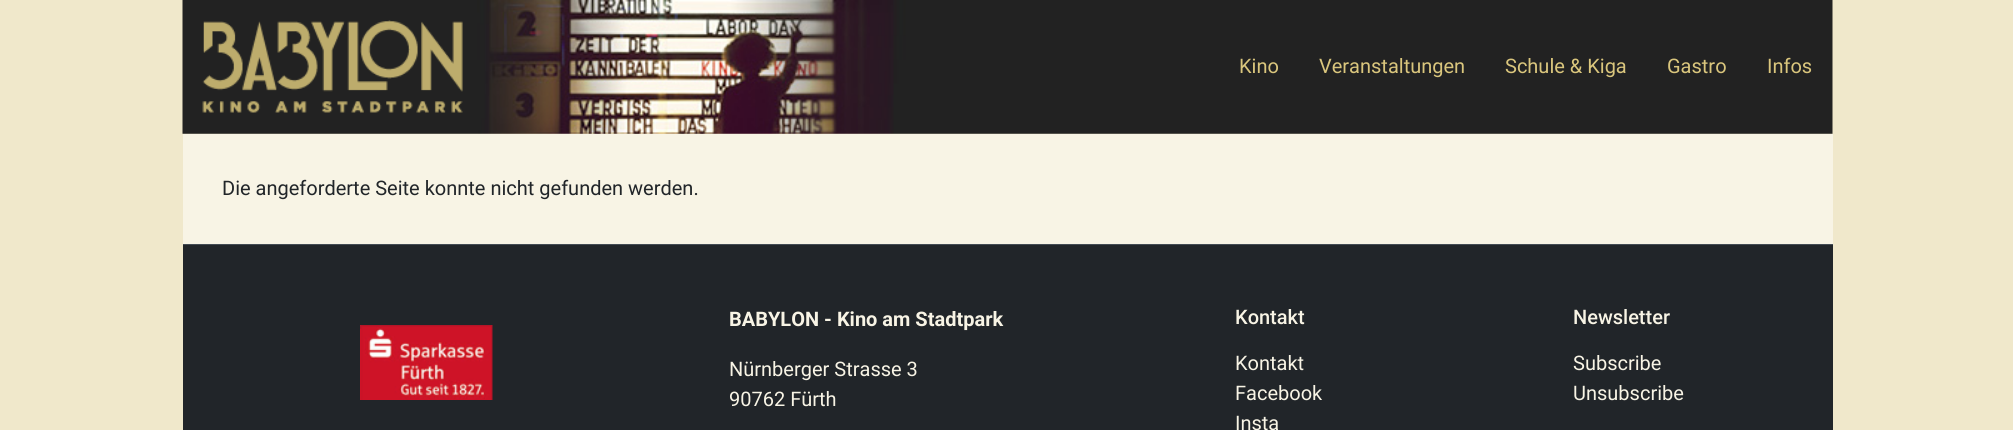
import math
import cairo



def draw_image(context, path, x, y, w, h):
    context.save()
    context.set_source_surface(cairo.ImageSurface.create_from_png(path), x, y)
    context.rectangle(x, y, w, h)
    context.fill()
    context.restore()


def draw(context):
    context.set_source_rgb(240 / 255, 232 / 255, 203 / 255)
    context.paint()
    draw_image(context, "images/1.png", 182, 0, 1651, 134)
    draw_image(context, "images/2.png", 202, 20, 261, 93)
    context.set_source_rgb(248 / 255, 244 / 255, 229 / 255)
    context.rectangle(183, 134, 1650, 110)
    context.fill()
    context.set_source_rgb(33 / 255, 37 / 255, 41 / 255)
    context.rectangle(183, 245, 1650, 185)
    context.fill()
    context.set_source_rgb(67 / 255, 75 / 255, 83 / 255)
    context.rectangle(183, 244, 1650, 1)
    context.fill()
    draw_image(context, "images/3.png", 360, 325, 133, 75)
    context.select_font_face("Roboto")
    context.set_font_size(20)
    context.set_source_rgb(218 / 255, 198 / 255, 125 / 255)
    context.move_to(1239, 73)
    context.show_text("Kino")
    context.move_to(1319, 73)
    context.show_text("Veranstaltungen")
    context.move_to(1505, 73)
    context.show_text("Schule & Kiga")
    context.move_to(1667, 73)
    context.show_text("Gastro")
    context.move_to(1767, 73)
    context.show_text("Infos")
    context.set_source_rgb(33 / 255, 37 / 255, 41 / 255)
    context.move_to(222, 195)
    context.show_text("Die angeforderte Seite konnte nicht gefunden werden.")
    context.select_font_face("Roboto", cairo.FontSlant.NORMAL, cairo.FontWeight.BOLD)
    context.set_source_rgb(248 / 255, 244 / 255, 229 / 255)
    context.move_to(729, 326)
    context.show_text("BABYLON - Kino am Stadtpark")
    context.select_font_face("Roboto")
    context.move_to(729, 376)
    context.show_text("Nürnberger Strasse 3")
    context.move_to(729, 406)
    context.show_text("90762 Fürth")
    context.select_font_face("Roboto Medium")
    context.move_to(1235, 324)
    context.show_text("Kontakt")
    context.select_font_face("Roboto")
    context.move_to(1235, 370)
    context.show_text("Kontakt")
    context.move_to(1235, 400)
    context.show_text("Facebook")
    context.move_to(1235, 430)
    context.show_text("Insta")
    context.select_font_face("Roboto Medium")
    context.move_to(1573, 324)
    context.show_text("Newsletter")
    context.select_font_face("Roboto")
    context.move_to(1573, 370)
    context.show_text("Subscribe")
    context.move_to(1573, 400)
    context.show_text("Unsubscribe")


surface = cairo.ImageSurface(cairo.Format.RGB24, 2013, 430)
context = cairo.Context(surface)
options = cairo.FontOptions()
options.set_hint_metrics(cairo.HintMetrics.OFF)
options.set_hint_style(cairo.HintStyle.NONE)
context.set_font_options(options)
context.set_miter_limit(4)
draw(context)
surface.write_to_png("out.png")
